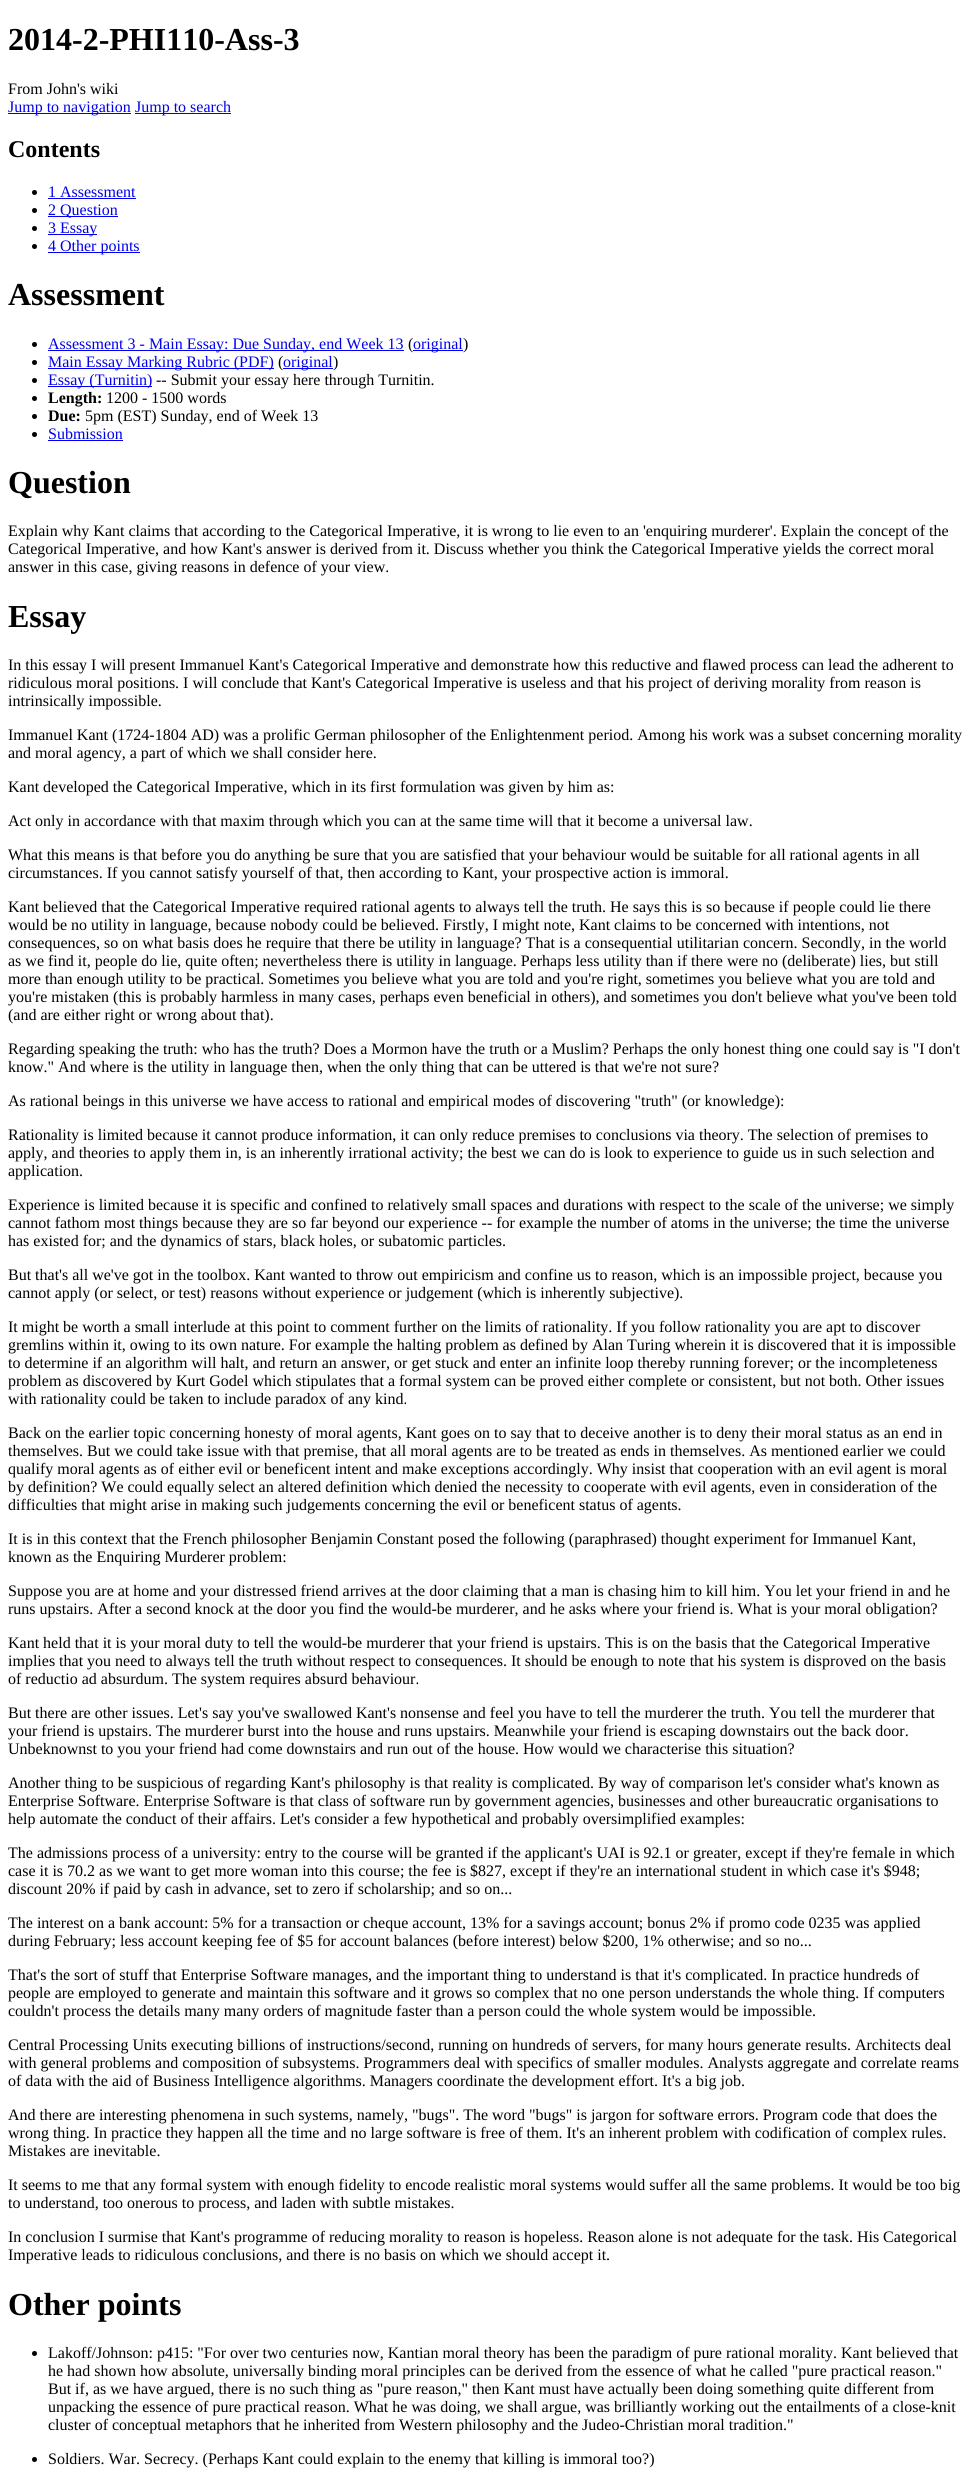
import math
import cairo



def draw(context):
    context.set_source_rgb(1, 1, 1)
    context.paint()
    context.set_source_rgb(0, 0, 238 / 255)
    context.rectangle(8, 113, 123, 1)
    context.fill()
    context.rectangle(135, 113, 96, 1)
    context.fill()
    context.set_source_rgb(0, 0, 0)
    context.arc(34.5, 192.5, 2.5, 0, 2 * math.pi)
    context.fill()
    context.set_source_rgb(0, 0, 238 / 255)
    context.rectangle(48, 198, 88, 1)
    context.fill()
    context.set_source_rgb(0, 0, 0)
    context.arc(34.5, 210.5, 2.5, 0, 2 * math.pi)
    context.fill()
    context.set_source_rgb(0, 0, 238 / 255)
    context.rectangle(48, 216, 70, 1)
    context.fill()
    context.set_source_rgb(0, 0, 0)
    context.arc(34.5, 228.5, 2.5, 0, 2 * math.pi)
    context.fill()
    context.set_source_rgb(0, 0, 238 / 255)
    context.rectangle(48, 234, 49, 1)
    context.fill()
    context.set_source_rgb(0, 0, 0)
    context.arc(34.5, 246.5, 2.5, 0, 2 * math.pi)
    context.fill()
    context.set_source_rgb(0, 0, 238 / 255)
    context.rectangle(48, 252, 92, 1)
    context.fill()
    context.set_source_rgb(0, 0, 0)
    context.arc(34.5, 344.5, 2.5, 0, 2 * math.pi)
    context.fill()
    context.set_source_rgb(0, 0, 238 / 255)
    context.rectangle(48, 350, 356, 1)
    context.fill()
    context.rectangle(413, 350, 50, 1)
    context.fill()
    context.set_source_rgb(0, 0, 0)
    context.arc(34.5, 362.5, 2.5, 0, 2 * math.pi)
    context.fill()
    context.set_source_rgb(0, 0, 238 / 255)
    context.rectangle(48, 368, 226, 1)
    context.fill()
    context.rectangle(283, 368, 50, 1)
    context.fill()
    context.set_source_rgb(0, 0, 0)
    context.arc(34.5, 380.5, 2.5, 0, 2 * math.pi)
    context.fill()
    context.set_source_rgb(0, 0, 238 / 255)
    context.rectangle(48, 386, 104, 1)
    context.fill()
    context.set_source_rgb(0, 0, 0)
    context.arc(34.5, 398.5, 2.5, 0, 2 * math.pi)
    context.fill()
    context.arc(34.5, 416.5, 2.5, 0, 2 * math.pi)
    context.fill()
    context.arc(34.5, 434.5, 2.5, 0, 2 * math.pi)
    context.fill()
    context.set_source_rgb(0, 0, 238 / 255)
    context.rectangle(48, 440, 75, 1)
    context.fill()
    context.set_source_rgb(0, 0, 0)
    context.arc(34.5, 2353.5, 2.5, 0, 2 * math.pi)
    context.fill()
    context.arc(34.5, 2459.5, 2.5, 0, 2 * math.pi)
    context.fill()
    context.select_font_face("Liberation Serif", cairo.FontSlant.NORMAL, cairo.FontWeight.BOLD)
    context.set_font_size(32)
    context.move_to(8, 50)
    context.show_text("2014-2-PHI110-Ass-3")
    context.select_font_face("Liberation Serif")
    context.set_font_size(16)
    context.move_to(8, 94)
    context.show_text("From John's wiki")
    context.set_source_rgb(0, 0, 238 / 255)
    context.move_to(8, 112)
    context.show_text("Jump to navigation")
    context.move_to(135, 112)
    context.show_text("Jump to search")
    context.select_font_face("Liberation Serif", cairo.FontSlant.NORMAL, cairo.FontWeight.BOLD)
    context.set_font_size(24)
    context.set_source_rgb(0, 0, 0)
    context.move_to(8, 157)
    context.show_text("Contents")
    context.select_font_face("Liberation Serif")
    context.set_font_size(16)
    context.set_source_rgb(0, 0, 238 / 255)
    context.move_to(48, 197)
    context.show_text("1 Assessment")
    context.move_to(48, 215)
    context.show_text("2 Question")
    context.move_to(48, 233)
    context.show_text("3 Essay")
    context.move_to(48, 251)
    context.show_text("4 Other points")
    context.select_font_face("Liberation Serif", cairo.FontSlant.NORMAL, cairo.FontWeight.BOLD)
    context.set_font_size(32)
    context.set_source_rgb(0, 0, 0)
    context.move_to(8, 305)
    context.show_text("Assessment")
    context.select_font_face("Liberation Serif")
    context.set_font_size(16)
    context.set_source_rgb(0, 0, 238 / 255)
    context.move_to(48, 349)
    context.show_text("Assessment 3 - Main Essay: Due Sunday, end Week 13")
    context.set_source_rgb(0, 0, 0)
    context.move_to(408, 349)
    context.show_text("(")
    context.set_source_rgb(0, 0, 238 / 255)
    context.move_to(413, 349)
    context.show_text("original")
    context.set_source_rgb(0, 0, 0)
    context.move_to(463, 349)
    context.show_text(")")
    context.set_source_rgb(0, 0, 238 / 255)
    context.move_to(48, 367)
    context.show_text("Main Essay Marking Rubric (PDF)")
    context.set_source_rgb(0, 0, 0)
    context.move_to(278, 367)
    context.show_text("(")
    context.set_source_rgb(0, 0, 238 / 255)
    context.move_to(283, 367)
    context.show_text("original")
    context.set_source_rgb(0, 0, 0)
    context.move_to(333, 367)
    context.show_text(")")
    context.set_source_rgb(0, 0, 238 / 255)
    context.move_to(48, 385)
    context.show_text("Essay (Turnitin)")
    context.set_source_rgb(0, 0, 0)
    context.move_to(156, 385)
    context.show_text("-- Submit your essay here through Turnitin.")
    context.select_font_face("Liberation Serif", cairo.FontSlant.NORMAL, cairo.FontWeight.BOLD)
    context.move_to(48, 403)
    context.show_text("Length:")
    context.select_font_face("Liberation Serif")
    context.move_to(106, 403)
    context.show_text("1200 - 1500 words")
    context.select_font_face("Liberation Serif", cairo.FontSlant.NORMAL, cairo.FontWeight.BOLD)
    context.move_to(48, 421)
    context.show_text("Due:")
    context.select_font_face("Liberation Serif")
    context.move_to(85, 421)
    context.show_text("5pm (EST) Sunday, end of Week 13")
    context.set_source_rgb(0, 0, 238 / 255)
    context.move_to(48, 439)
    context.show_text("Submission")
    context.select_font_face("Liberation Serif", cairo.FontSlant.NORMAL, cairo.FontWeight.BOLD)
    context.set_font_size(32)
    context.set_source_rgb(0, 0, 0)
    context.move_to(8, 493)
    context.show_text("Question")
    context.select_font_face("Liberation Serif")
    context.set_font_size(16)
    context.move_to(8, 536)
    context.show_text("Explain why Kant claims that according to the Categorical Imperative, it is wrong to lie even to an 'enquiring murderer'. Explain the concept of the")
    context.move_to(8, 554)
    context.show_text("Categorical Imperative, and how Kant's answer is derived from it. Discuss whether you think the Categorical Imperative yields the correct moral")
    context.move_to(8, 572)
    context.show_text("answer in this case, giving reasons in defence of your view.")
    context.select_font_face("Liberation Serif", cairo.FontSlant.NORMAL, cairo.FontWeight.BOLD)
    context.set_font_size(32)
    context.move_to(8, 627)
    context.show_text("Essay")
    context.select_font_face("Liberation Serif")
    context.set_font_size(16)
    context.move_to(8, 670)
    context.show_text("In this essay I will present Immanuel Kant's Categorical Imperative and demonstrate how this reductive and flawed process can lead the adherent to")
    context.move_to(8, 688)
    context.show_text("ridiculous moral positions. I will conclude that Kant's Categorical Imperative is useless and that his project of deriving morality from reason is")
    context.move_to(8, 706)
    context.show_text("intrinsically impossible.")
    context.move_to(8, 740)
    context.show_text("Immanuel Kant (1724-1804 AD) was a prolific German philosopher of the Enlightenment period. Among his work was a subset concerning morality")
    context.move_to(8, 758)
    context.show_text("and moral agency, a part of which we shall consider here.")
    context.move_to(8, 792)
    context.show_text("Kant developed the Categorical Imperative, which in its first formulation was given by him as:")
    context.move_to(8, 826)
    context.show_text("Act only in accordance with that maxim through which you can at the same time will that it become a universal law.")
    context.move_to(8, 860)
    context.show_text("What this means is that before you do anything be sure that you are satisfied that your behaviour would be suitable for all rational agents in all")
    context.move_to(8, 878)
    context.show_text("circumstances. If you cannot satisfy yourself of that, then according to Kant, your prospective action is immoral.")
    context.move_to(8, 912)
    context.show_text("Kant believed that the Categorical Imperative required rational agents to always tell the truth. He says this is so because if people could lie there")
    context.move_to(8, 930)
    context.show_text("would be no utility in language, because nobody could be believed. Firstly, I might note, Kant claims to be concerned with intentions, not")
    context.move_to(8, 948)
    context.show_text("consequences, so on what basis does he require that there be utility in language? That is a consequential utilitarian concern. Secondly, in the world")
    context.move_to(8, 966)
    context.show_text("as we find it, people do lie, quite often; nevertheless there is utility in language. Perhaps less utility than if there were no (deliberate) lies, but still")
    context.move_to(8, 984)
    context.show_text("more than enough utility to be practical. Sometimes you believe what you are told and you're right, sometimes you believe what you are told and")
    context.move_to(8, 1002)
    context.show_text("you're mistaken (this is probably harmless in many cases, perhaps even beneficial in others), and sometimes you don't believe what you've been told")
    context.move_to(8, 1020)
    context.show_text("(and are either right or wrong about that).")
    context.move_to(8, 1054)
    context.show_text("Regarding speaking the truth: who has the truth? Does a Mormon have the truth or a Muslim? Perhaps the only honest thing one could say is \"I don't")
    context.move_to(8, 1072)
    context.show_text("know.\" And where is the utility in language then, when the only thing that can be uttered is that we're not sure?")
    context.move_to(8, 1106)
    context.show_text("As rational beings in this universe we have access to rational and empirical modes of discovering \"truth\" (or knowledge):")
    context.move_to(8, 1140)
    context.show_text("Rationality is limited because it cannot produce information, it can only reduce premises to conclusions via theory. The selection of premises to")
    context.move_to(8, 1158)
    context.show_text("apply, and theories to apply them in, is an inherently irrational activity; the best we can do is look to experience to guide us in such selection and")
    context.move_to(8, 1176)
    context.show_text("application.")
    context.move_to(8, 1210)
    context.show_text("Experience is limited because it is specific and confined to relatively small spaces and durations with respect to the scale of the universe; we simply")
    context.move_to(8, 1228)
    context.show_text("cannot fathom most things because they are so far beyond our experience -- for example the number of atoms in the universe; the time the universe")
    context.move_to(8, 1246)
    context.show_text("has existed for; and the dynamics of stars, black holes, or subatomic particles.")
    context.move_to(8, 1280)
    context.show_text("But that's all we've got in the toolbox. Kant wanted to throw out empiricism and confine us to reason, which is an impossible project, because you")
    context.move_to(8, 1298)
    context.show_text("cannot apply (or select, or test) reasons without experience or judgement (which is inherently subjective).")
    context.move_to(8, 1332)
    context.show_text("It might be worth a small interlude at this point to comment further on the limits of rationality. If you follow rationality you are apt to discover")
    context.move_to(8, 1350)
    context.show_text("gremlins within it, owing to its own nature. For example the halting problem as defined by Alan Turing wherein it is discovered that it is impossible")
    context.move_to(8, 1368)
    context.show_text("to determine if an algorithm will halt, and return an answer, or get stuck and enter an infinite loop thereby running forever; or the incompleteness")
    context.move_to(8, 1386)
    context.show_text("problem as discovered by Kurt Godel which stipulates that a formal system can be proved either complete or consistent, but not both. Other issues")
    context.move_to(8, 1404)
    context.show_text("with rationality could be taken to include paradox of any kind.")
    context.move_to(8, 1438)
    context.show_text("Back on the earlier topic concerning honesty of moral agents, Kant goes on to say that to deceive another is to deny their moral status as an end in")
    context.move_to(8, 1456)
    context.show_text("themselves. But we could take issue with that premise, that all moral agents are to be treated as ends in themselves. As mentioned earlier we could")
    context.move_to(8, 1474)
    context.show_text("qualify moral agents as of either evil or beneficent intent and make exceptions accordingly. Why insist that cooperation with an evil agent is moral")
    context.move_to(8, 1492)
    context.show_text("by definition? We could equally select an altered definition which denied the necessity to cooperate with evil agents, even in consideration of the")
    context.move_to(8, 1510)
    context.show_text("difficulties that might arise in making such judgements concerning the evil or beneficent status of agents.")
    context.move_to(8, 1544)
    context.show_text("It is in this context that the French philosopher Benjamin Constant posed the following (paraphrased) thought experiment for Immanuel Kant,")
    context.move_to(8, 1562)
    context.show_text("known as the Enquiring Murderer problem:")
    context.move_to(8, 1596)
    context.show_text("Suppose you are at home and your distressed friend arrives at the door claiming that a man is chasing him to kill him. You let your friend in and he")
    context.move_to(8, 1614)
    context.show_text("runs upstairs. After a second knock at the door you find the would-be murderer, and he asks where your friend is. What is your moral obligation?")
    context.move_to(8, 1648)
    context.show_text("Kant held that it is your moral duty to tell the would-be murderer that your friend is upstairs. This is on the basis that the Categorical Imperative")
    context.move_to(8, 1666)
    context.show_text("implies that you need to always tell the truth without respect to consequences. It should be enough to note that his system is disproved on the basis")
    context.move_to(8, 1684)
    context.show_text("of reductio ad absurdum. The system requires absurd behaviour.")
    context.move_to(8, 1718)
    context.show_text("But there are other issues. Let's say you've swallowed Kant's nonsense and feel you have to tell the murderer the truth. You tell the murderer that")
    context.move_to(8, 1736)
    context.show_text("your friend is upstairs. The murderer burst into the house and runs upstairs. Meanwhile your friend is escaping downstairs out the back door.")
    context.move_to(8, 1754)
    context.show_text("Unbeknownst to you your friend had come downstairs and run out of the house. How would we characterise this situation?")
    context.move_to(8, 1788)
    context.show_text("Another thing to be suspicious of regarding Kant's philosophy is that reality is complicated. By way of comparison let's consider what's known as")
    context.move_to(8, 1806)
    context.show_text("Enterprise Software. Enterprise Software is that class of software run by government agencies, businesses and other bureaucratic organisations to")
    context.move_to(8, 1824)
    context.show_text("help automate the conduct of their affairs. Let's consider a few hypothetical and probably oversimplified examples:")
    context.move_to(8, 1858)
    context.show_text("The admissions process of a university: entry to the course will be granted if the applicant's UAI is 92.1 or greater, except if they're female in which")
    context.move_to(8, 1876)
    context.show_text("case it is 70.2 as we want to get more woman into this course; the fee is $827, except if they're an international student in which case it's $948;")
    context.move_to(8, 1894)
    context.show_text("discount 20% if paid by cash in advance, set to zero if scholarship; and so on...")
    context.move_to(8, 1928)
    context.show_text("The interest on a bank account: 5% for a transaction or cheque account, 13% for a savings account; bonus 2% if promo code 0235 was applied")
    context.move_to(8, 1946)
    context.show_text("during February; less account keeping fee of $5 for account balances (before interest) below $200, 1% otherwise; and so no...")
    context.move_to(8, 1980)
    context.show_text("That's the sort of stuff that Enterprise Software manages, and the important thing to understand is that it's complicated. In practice hundreds of")
    context.move_to(8, 1998)
    context.show_text("people are employed to generate and maintain this software and it grows so complex that no one person understands the whole thing. If computers")
    context.move_to(8, 2016)
    context.show_text("couldn't process the details many many orders of magnitude faster than a person could the whole system would be impossible.")
    context.move_to(8, 2050)
    context.show_text("Central Processing Units executing billions of instructions/second, running on hundreds of servers, for many hours generate results. Architects deal")
    context.move_to(8, 2068)
    context.show_text("with general problems and composition of subsystems. Programmers deal with specifics of smaller modules. Analysts aggregate and correlate reams")
    context.move_to(8, 2086)
    context.show_text("of data with the aid of Business Intelligence algorithms. Managers coordinate the development effort. It's a big job.")
    context.move_to(8, 2120)
    context.show_text("And there are interesting phenomena in such systems, namely, \"bugs\". The word \"bugs\" is jargon for software errors. Program code that does the")
    context.move_to(8, 2138)
    context.show_text("wrong thing. In practice they happen all the time and no large software is free of them. It's an inherent problem with codification of complex rules.")
    context.move_to(8, 2156)
    context.show_text("Mistakes are inevitable.")
    context.move_to(8, 2190)
    context.show_text("It seems to me that any formal system with enough fidelity to encode realistic moral systems would suffer all the same problems. It would be too big")
    context.move_to(8, 2208)
    context.show_text("to understand, too onerous to process, and laden with subtle mistakes.")
    context.move_to(8, 2242)
    context.show_text("In conclusion I surmise that Kant's programme of reducing morality to reason is hopeless. Reason alone is not adequate for the task. His Categorical")
    context.move_to(8, 2260)
    context.show_text("Imperative leads to ridiculous conclusions, and there is no basis on which we should accept it.")
    context.select_font_face("Liberation Serif", cairo.FontSlant.NORMAL, cairo.FontWeight.BOLD)
    context.set_font_size(32)
    context.move_to(8, 2315)
    context.show_text("Other points")
    context.select_font_face("Liberation Serif")
    context.set_font_size(16)
    context.move_to(48, 2358)
    context.show_text("Lakoff/Johnson: p415: \"For over two centuries now, Kantian moral theory has been the paradigm of pure rational morality. Kant believed that")
    context.move_to(48, 2376)
    context.show_text("he had shown how absolute, universally binding moral principles can be derived from the essence of what he called \"pure practical reason.\"")
    context.move_to(48, 2394)
    context.show_text("But if, as we have argued, there is no such thing as \"pure reason,\" then Kant must have actually been doing something quite different from")
    context.move_to(48, 2412)
    context.show_text("unpacking the essence of pure practical reason. What he was doing, we shall argue, was brilliantly working out the entailments of a close-knit")
    context.move_to(48, 2430)
    context.show_text("cluster of conceptual metaphors that he inherited from Western philosophy and the Judeo-Christian moral tradition.\"")
    context.move_to(48, 2464)
    context.show_text("Soldiers. War. Secrecy. (Perhaps Kant could explain to the enemy that killing is immoral too?)")


surface = cairo.ImageSurface(cairo.Format.RGB24, 971, 2491)
context = cairo.Context(surface)
options = cairo.FontOptions()
options.set_hint_metrics(cairo.HintMetrics.OFF)
options.set_hint_style(cairo.HintStyle.NONE)
context.set_font_options(options)
context.set_miter_limit(4)
draw(context)
surface.write_to_png("out.png")
